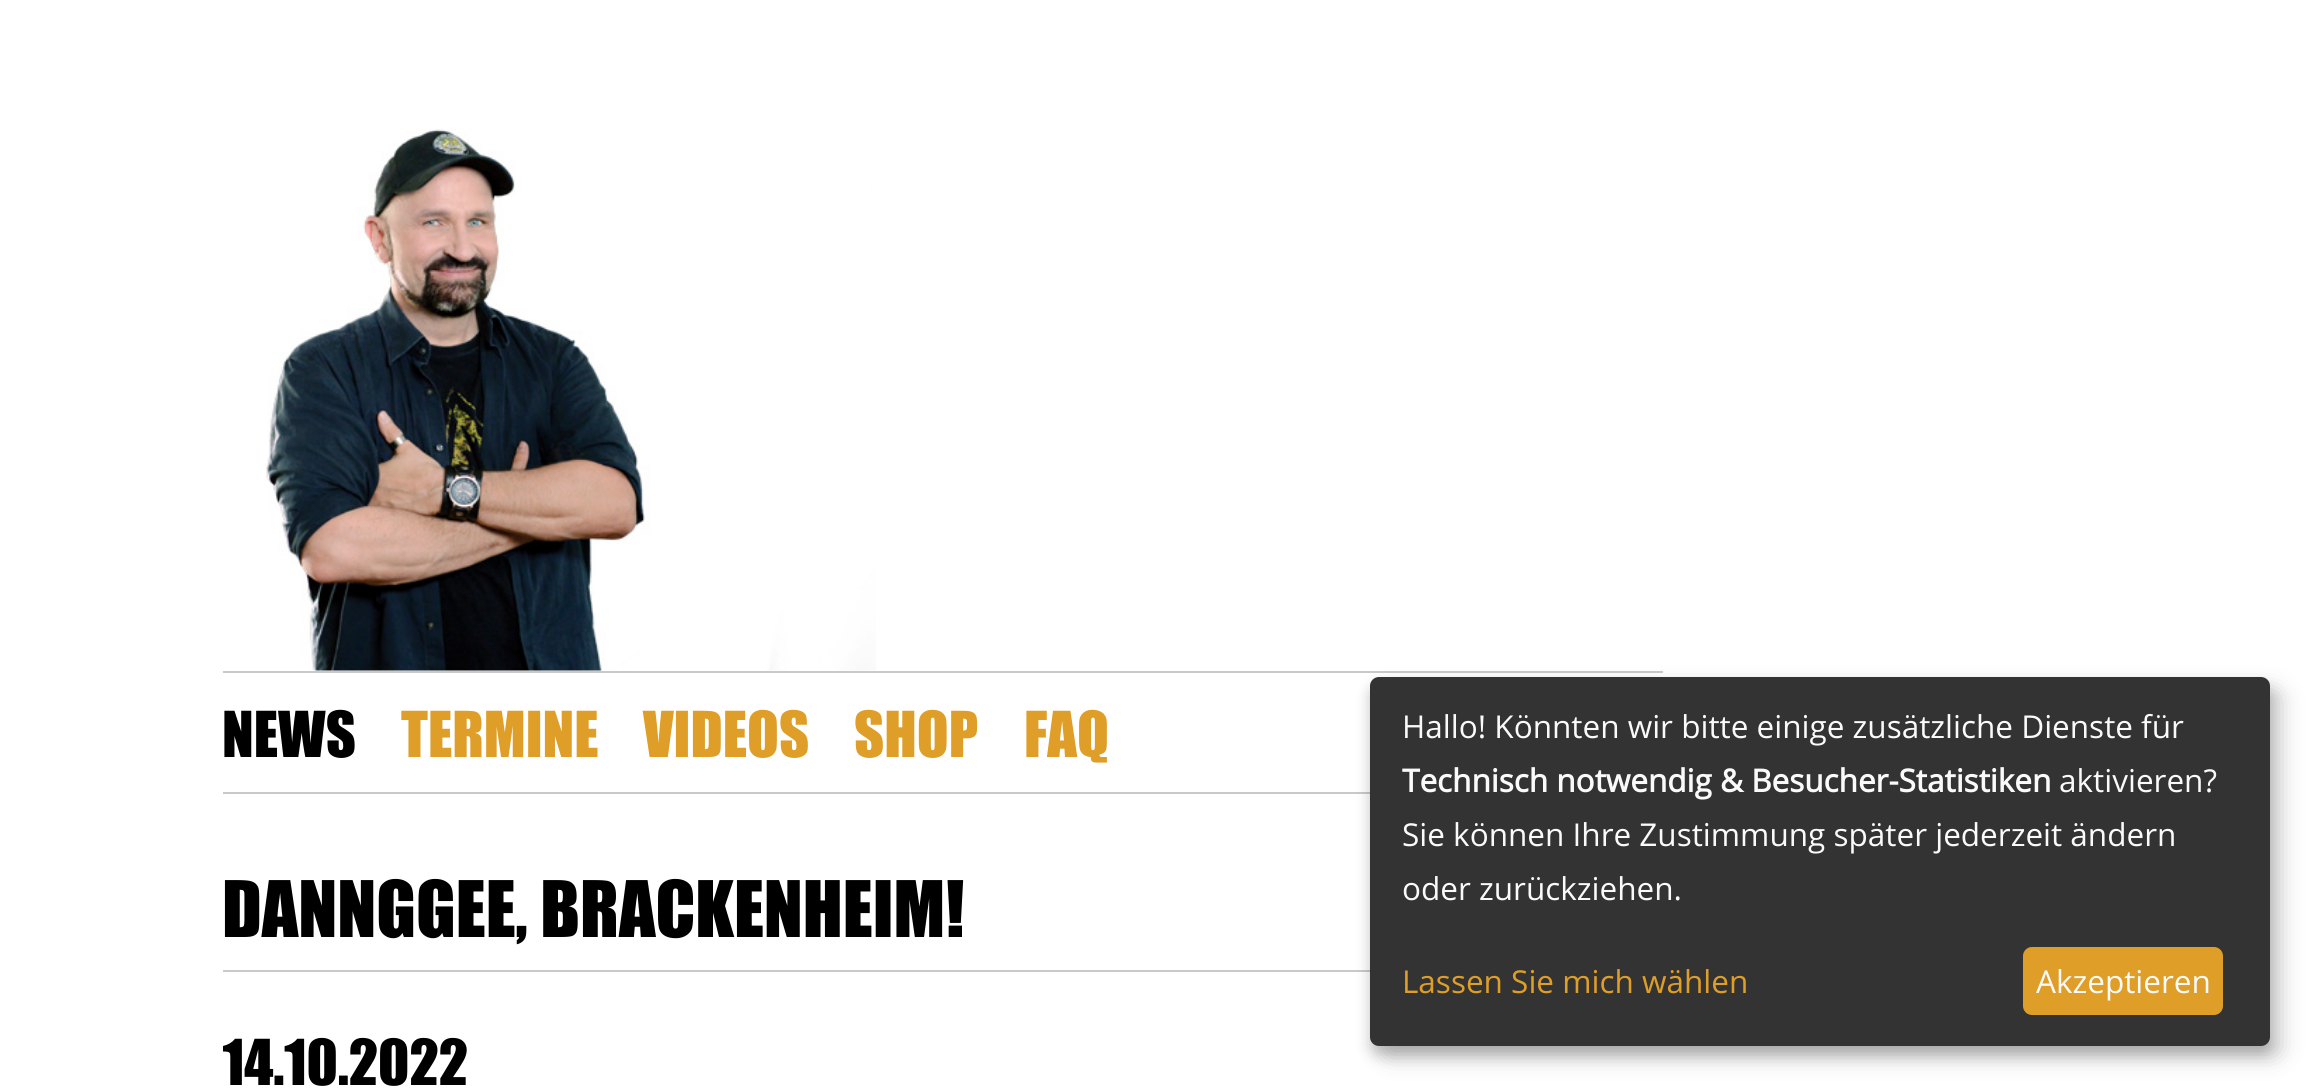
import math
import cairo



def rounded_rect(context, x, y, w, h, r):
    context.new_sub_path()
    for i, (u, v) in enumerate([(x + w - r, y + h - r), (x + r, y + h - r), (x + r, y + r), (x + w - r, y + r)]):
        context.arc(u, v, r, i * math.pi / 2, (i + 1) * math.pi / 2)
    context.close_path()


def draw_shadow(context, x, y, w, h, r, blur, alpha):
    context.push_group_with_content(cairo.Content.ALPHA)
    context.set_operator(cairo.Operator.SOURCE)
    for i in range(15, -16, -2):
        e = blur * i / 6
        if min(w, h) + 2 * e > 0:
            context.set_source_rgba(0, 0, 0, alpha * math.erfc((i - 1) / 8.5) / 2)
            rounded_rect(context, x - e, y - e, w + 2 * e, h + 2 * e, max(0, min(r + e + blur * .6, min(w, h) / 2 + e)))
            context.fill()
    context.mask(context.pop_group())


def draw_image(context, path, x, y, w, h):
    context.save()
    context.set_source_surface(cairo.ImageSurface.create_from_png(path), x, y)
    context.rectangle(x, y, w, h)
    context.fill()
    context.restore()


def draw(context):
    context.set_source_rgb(1, 1, 1)
    context.paint()
    draw_image(context, "images/1.png", 265, 129, 611, 542)
    context.set_source_rgb(201 / 255, 201 / 255, 201 / 255)
    context.rectangle(223, 671, 1440, 2)
    context.fill()
    context.rectangle(223, 792, 1147, 2)
    context.fill()
    context.rectangle(223, 970, 1147, 2)
    context.fill()
    context.set_source_rgb(0, 0, 0)
    draw_shadow(context, 1382, 689, 900, 369, 9, 11, 0.19)
    draw_shadow(context, 1370, 686, 900, 369, 9, 7, 0.2)
    context.set_source_rgb(51 / 255, 51 / 255, 51 / 255)
    rounded_rect(context, 1370, 677, 900, 369, 9)
    context.fill()
    context.set_source_rgb(222 / 255, 158 / 255, 40 / 255)
    rounded_rect(context, 2023, 947, 200, 68, 9)
    context.fill()
    context.select_font_face("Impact")
    context.set_font_size(58.5)
    context.set_source_rgb(0, 0, 0)
    context.move_to(222, 757)
    context.show_text("NEWS")
    context.set_source_rgb(222 / 255, 158 / 255, 40 / 255)
    context.move_to(401, 757)
    context.show_text("TERMINE")
    context.move_to(643, 757)
    context.show_text("VIDEOS")
    context.move_to(854, 757)
    context.show_text("SHOP")
    context.move_to(1024, 757)
    context.show_text("FAQ")
    context.set_font_size(72)
    context.set_source_rgb(0, 0, 0)
    context.move_to(222, 937)
    context.show_text("DANNGGEE, BRACKENHEIM!")
    context.save()
    context.rectangle(223, 794, 1440, 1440)
    context.clip()
    context.set_font_size(58.5)
    context.move_to(222, 1085)
    context.show_text("14.10.2022")
    context.restore()
    context.select_font_face("Open Sans")
    context.set_font_size(31.5)
    context.set_source_rgb(250 / 255, 250 / 255, 250 / 255)
    context.move_to(1402, 738)
    context.show_text("Hallo! Könnten wir bitte einige zusätzliche Dienste für")
    context.select_font_face("Open Sans", cairo.FontSlant.NORMAL, cairo.FontWeight.BOLD)
    context.move_to(1402, 792)
    context.show_text("Technisch notwendig & Besucher-Statistiken")
    context.select_font_face("Open Sans")
    context.move_to(2059, 792)
    context.show_text("aktivieren?")
    context.move_to(1402, 846)
    context.show_text("Sie können Ihre Zustimmung später jederzeit ändern")
    context.move_to(1402, 900)
    context.show_text("oder zurückziehen.")
    context.set_source_rgb(222 / 255, 158 / 255, 40 / 255)
    context.move_to(1402, 993)
    context.show_text("Lassen Sie mich wählen")
    context.set_source_rgb(250 / 255, 250 / 255, 250 / 255)
    context.move_to(2036, 993)
    context.show_text("Akzeptieren")


surface = cairo.ImageSurface(cairo.Format.RGB24, 2315, 1090)
context = cairo.Context(surface)
options = cairo.FontOptions()
options.set_hint_metrics(cairo.HintMetrics.OFF)
options.set_hint_style(cairo.HintStyle.NONE)
context.set_font_options(options)
context.set_miter_limit(4)
draw(context)
surface.write_to_png("out.png")
